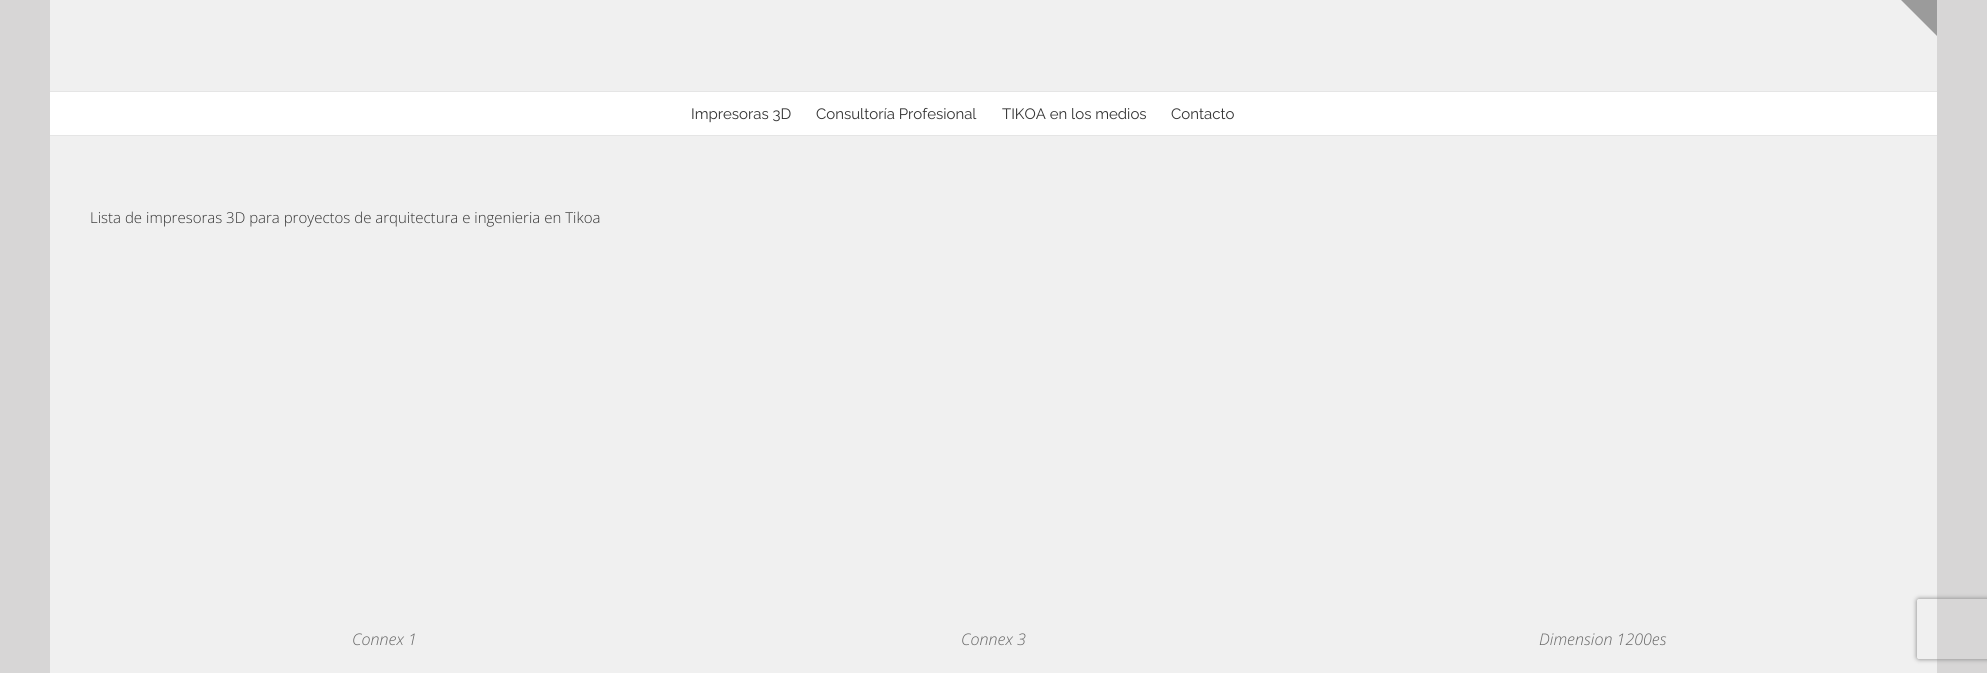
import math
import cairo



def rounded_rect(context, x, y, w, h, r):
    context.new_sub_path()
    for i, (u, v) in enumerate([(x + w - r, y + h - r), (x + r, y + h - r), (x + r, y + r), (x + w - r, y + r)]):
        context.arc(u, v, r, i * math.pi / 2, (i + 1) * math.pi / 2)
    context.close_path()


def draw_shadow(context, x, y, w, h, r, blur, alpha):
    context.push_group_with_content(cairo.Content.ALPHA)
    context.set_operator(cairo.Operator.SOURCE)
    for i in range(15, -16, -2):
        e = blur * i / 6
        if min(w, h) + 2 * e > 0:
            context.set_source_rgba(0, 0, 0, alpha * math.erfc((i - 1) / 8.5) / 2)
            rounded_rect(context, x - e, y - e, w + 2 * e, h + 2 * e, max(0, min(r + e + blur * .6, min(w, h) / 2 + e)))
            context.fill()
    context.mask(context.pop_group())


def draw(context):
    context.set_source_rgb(215 / 255, 214 / 255, 214 / 255)
    context.paint()
    context.set_source_rgb(240 / 255, 240 / 255, 240 / 255)
    context.rectangle(50, 0, 1887, 91)
    context.fill()
    context.set_source_rgb(155 / 255, 155 / 255, 155 / 255)
    context.new_path()
    context.move_to(1901, 0)
    context.line_to(1937, 0)
    context.line_to(1937, 36)
    context.close_path()
    context.fill()
    context.set_source_rgb(229 / 255, 229 / 255, 229 / 255)
    context.rectangle(50, 91, 1887, 1)
    context.fill()
    context.set_source_rgb(1, 1, 1)
    context.rectangle(50, 92, 1887, 43)
    context.fill()
    context.set_source_rgb(229 / 255, 229 / 255, 229 / 255)
    context.rectangle(50, 135, 1887, 1)
    context.fill()
    context.set_source_rgb(240 / 255, 240 / 255, 240 / 255)
    context.rectangle(50, 136, 1887, 537)
    context.fill()
    context.save()
    context.set_fill_rule(cairo.FillRule.EVEN_ODD)
    context.new_path()
    context.move_to(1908, 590)
    context.line_to(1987, 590)
    context.line_to(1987, 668)
    context.line_to(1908, 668)
    context.close_path()
    context.move_to(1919, 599)
    context.line_to(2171, 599)
    context.curve_to(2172, 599, 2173, 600, 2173, 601)
    context.line_to(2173, 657)
    context.curve_to(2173, 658, 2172, 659, 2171, 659)
    context.line_to(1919, 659)
    context.curve_to(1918, 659, 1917, 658, 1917, 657)
    context.line_to(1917, 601)
    context.curve_to(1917, 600, 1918, 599, 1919, 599)
    context.close_path()
    context.clip()
    context.set_source_rgb(128 / 255, 128 / 255, 128 / 255)
    draw_shadow(context, 1917, 599, 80, 60, 2, 2.5, 1)
    context.restore()
    context.select_font_face("Raleway")
    context.set_font_size(15)
    context.set_source_rgb(51 / 255, 51 / 255, 51 / 255)
    context.move_to(691, 119)
    context.show_text("Impresoras 3D")
    context.move_to(816, 119)
    context.show_text("Consultoría Profesional")
    context.move_to(1002, 119)
    context.show_text("TIKOA en los medios")
    context.move_to(1171, 119)
    context.show_text("Contacto")
    context.select_font_face("Open Sans Light")
    context.move_to(90, 223)
    context.show_text("Lista de impresoras 3D para proyectos de arquitectura e ingenieria en Tikoa")
    context.select_font_face("Open Sans Light", cairo.FontSlant.ITALIC)
    context.set_font_size(16)
    context.set_source_rgb(102 / 255, 102 / 255, 102 / 255)
    context.move_to(352, 645)
    context.show_text("Connex 1")
    context.move_to(961, 645)
    context.show_text("Connex 3")
    context.move_to(1539, 645)
    context.show_text("Dimension 1200es")


surface = cairo.ImageSurface(cairo.Format.RGB24, 1987, 673)
context = cairo.Context(surface)
options = cairo.FontOptions()
options.set_hint_metrics(cairo.HintMetrics.OFF)
options.set_hint_style(cairo.HintStyle.NONE)
context.set_font_options(options)
context.set_miter_limit(4)
draw(context)
surface.write_to_png("out.png")
